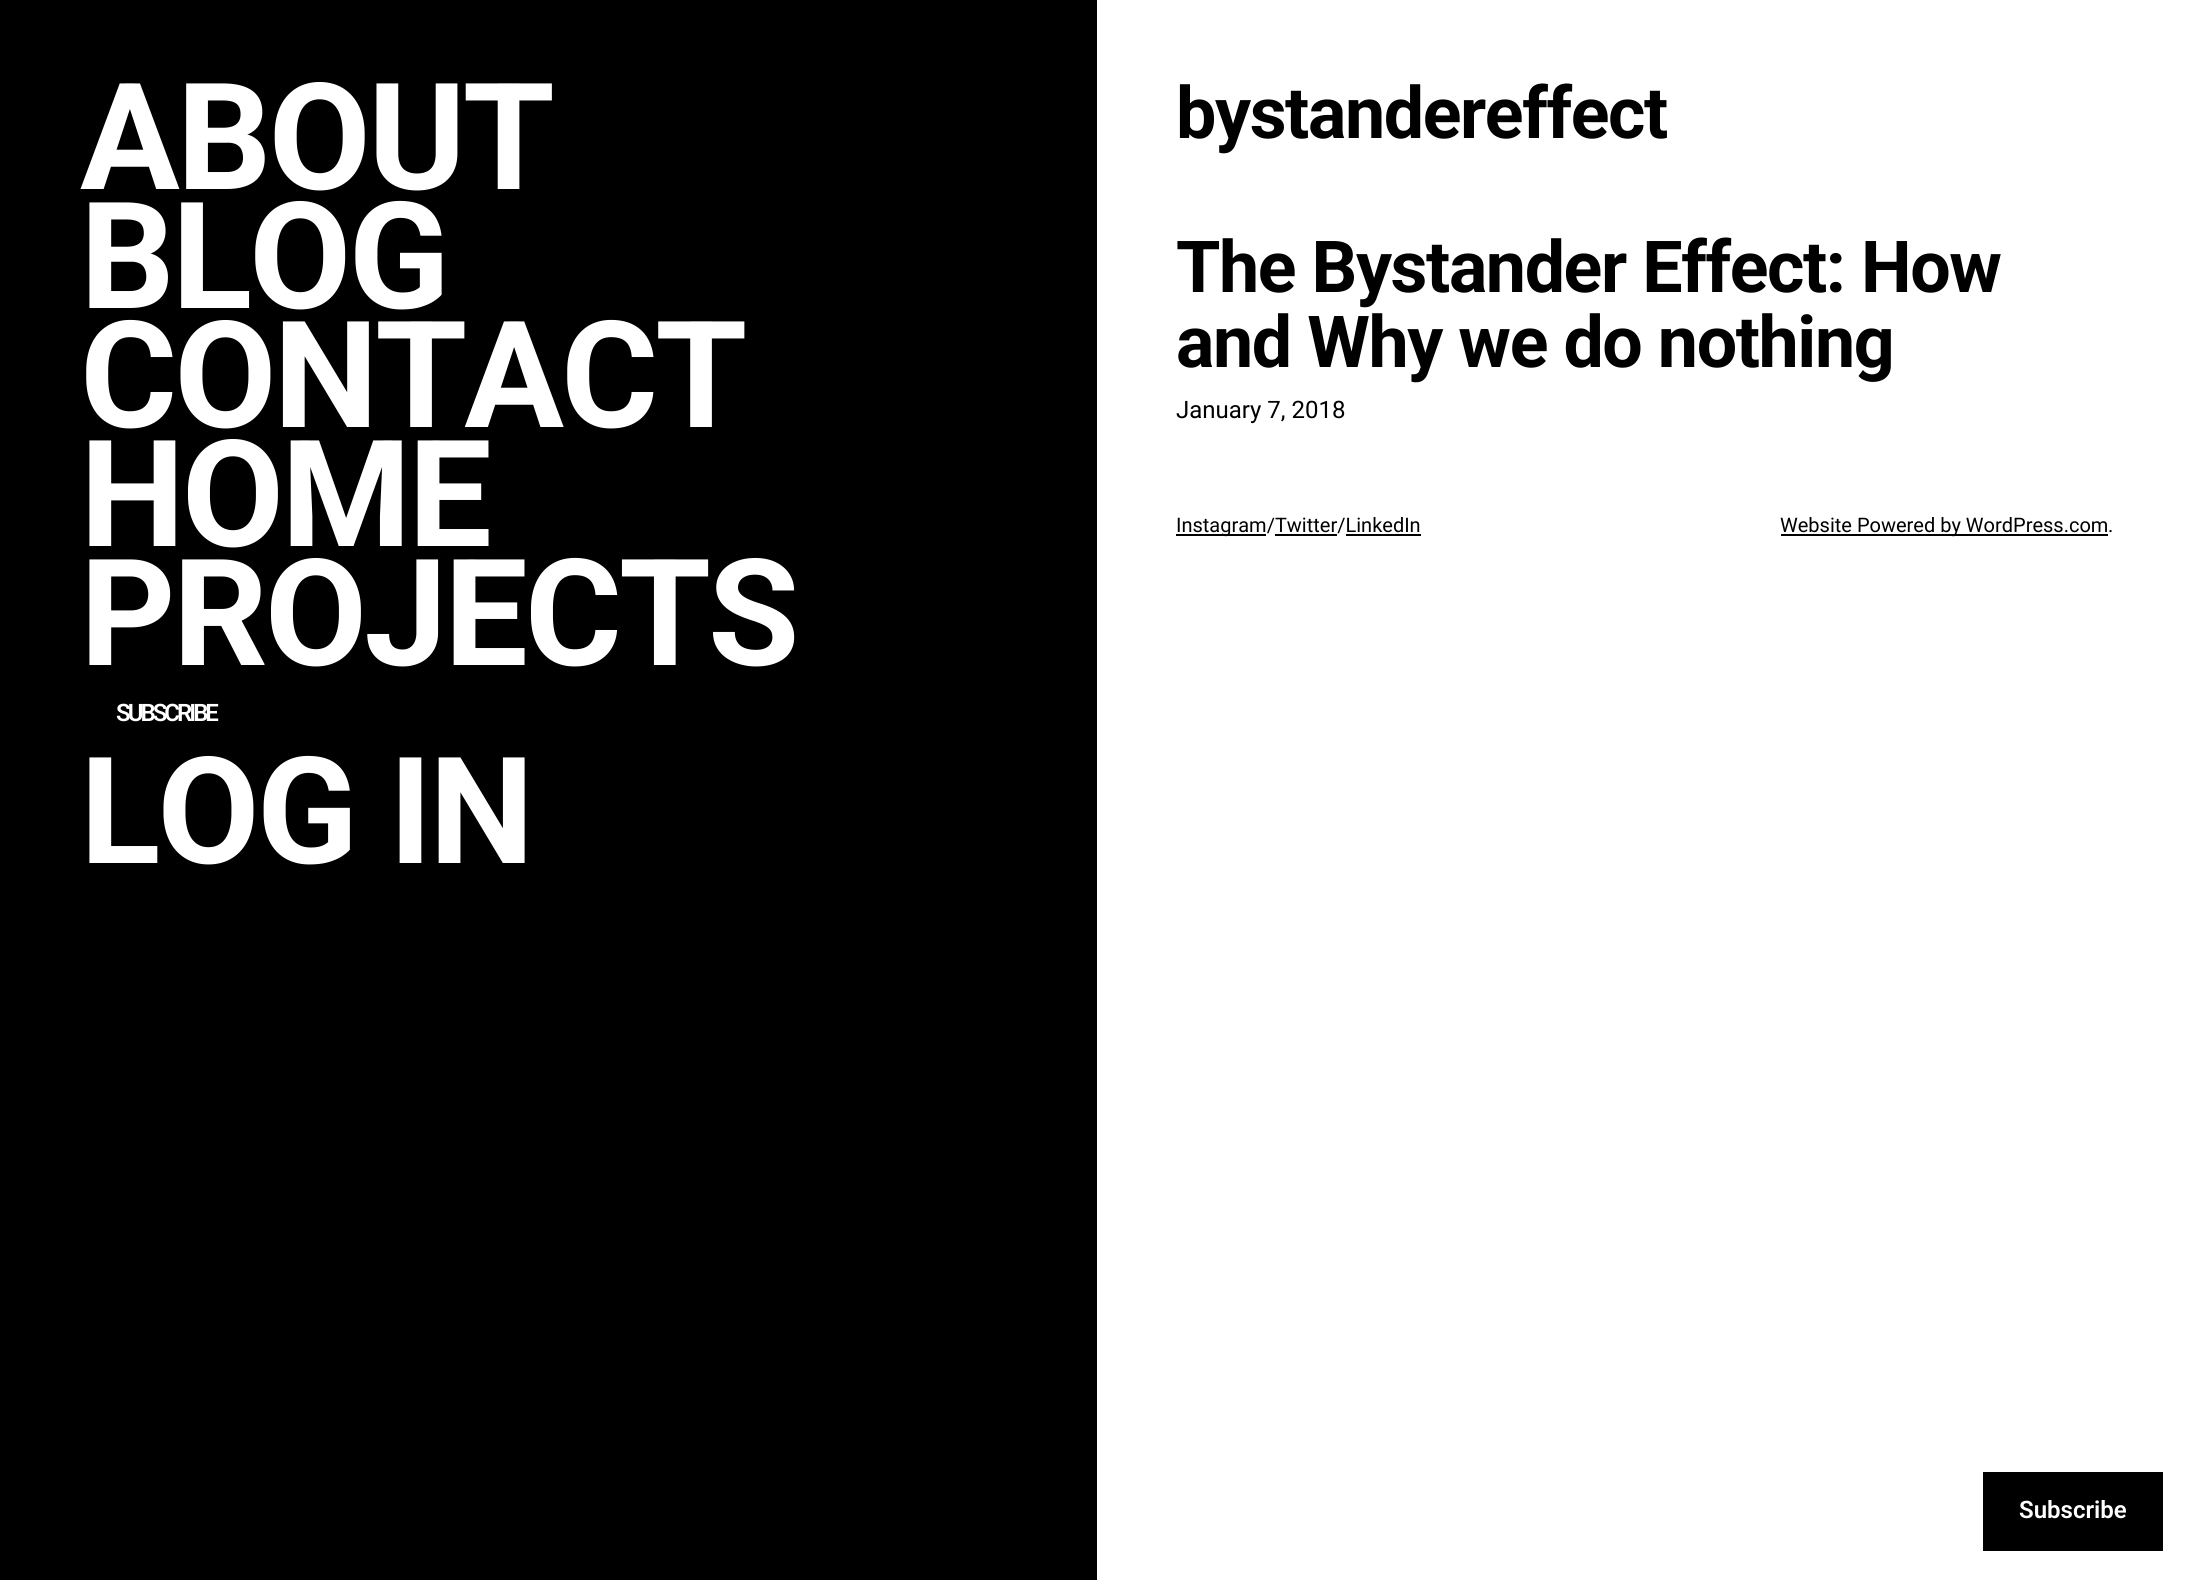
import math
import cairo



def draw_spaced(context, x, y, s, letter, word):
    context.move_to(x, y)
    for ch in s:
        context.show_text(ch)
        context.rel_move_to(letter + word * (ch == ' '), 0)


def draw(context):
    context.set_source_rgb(1, 1, 1)
    context.paint()
    context.set_source_rgb(0, 0, 0)
    context.rectangle(0, 0, 1097, 1580)
    context.fill()
    context.rectangle(1176, 534, 90, 2)
    context.fill()
    context.rectangle(1275, 534, 62, 2)
    context.fill()
    context.rectangle(1346, 534, 75, 2)
    context.fill()
    context.rectangle(1781, 534, 327, 2)
    context.fill()
    context.rectangle(1983, 1472, 180, 79)
    context.fill()
    context.select_font_face("Roboto", cairo.FontSlant.NORMAL, cairo.FontWeight.BOLD)
    context.set_font_size(148.5)
    context.set_source_rgb(1, 1, 1)
    draw_spaced(context, 80, 189, "ABOUT", -3, 0)
    draw_spaced(context, 80, 308, "BLOG", -3, 0)
    draw_spaced(context, 80, 427, "CONTACT", -3, 0)
    draw_spaced(context, 80, 546, "HOME", -3, 0)
    draw_spaced(context, 80, 665, "PROJECTS", -3, 0)
    context.select_font_face("Roboto SemiBold")
    context.set_font_size(24)
    draw_spaced(context, 116, 721, "SUBSCRIBE", -3, 0)
    context.select_font_face("Roboto", cairo.FontSlant.NORMAL, cairo.FontWeight.BOLD)
    context.set_font_size(148.5)
    draw_spaced(context, 80, 863, "LOG IN", -3, 0)
    context.set_font_size(71.7)
    context.set_source_rgb(0, 0, 0)
    draw_spaced(context, 1176, 138, "bystandereffect", -1.4, 0)
    draw_spaced(context, 1176, 292, "The Bystander Effect: How", -1.4, 0)
    draw_spaced(context, 1176, 367, "and Why we do nothing", -1.4, 0)
    context.select_font_face("Roboto")
    context.set_font_size(24)
    context.move_to(1176, 418)
    context.show_text("January 7, 2018")
    context.set_font_size(20)
    context.move_to(1176, 532)
    context.show_text("Instagram/Twitter/LinkedIn")
    context.move_to(1780, 532)
    context.show_text("Website Powered by WordPress.com")
    context.move_to(2108, 532)
    context.show_text(".")
    context.select_font_face("Roboto SemiBold")
    context.set_font_size(24)
    context.set_source_rgb(1, 1, 1)
    context.move_to(2019, 1518)
    context.show_text("Subscribe")


surface = cairo.ImageSurface(cairo.Format.RGB24, 2192, 1580)
context = cairo.Context(surface)
options = cairo.FontOptions()
options.set_hint_metrics(cairo.HintMetrics.OFF)
options.set_hint_style(cairo.HintStyle.NONE)
context.set_font_options(options)
context.set_miter_limit(4)
draw(context)
surface.write_to_png("out.png")
